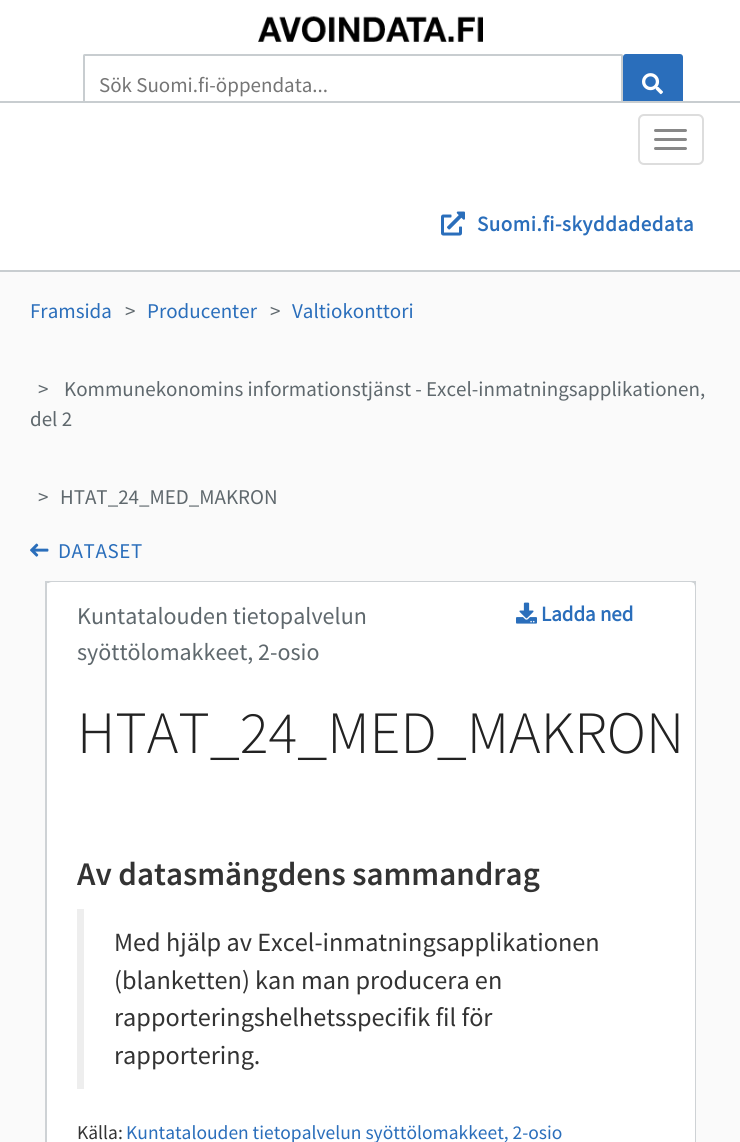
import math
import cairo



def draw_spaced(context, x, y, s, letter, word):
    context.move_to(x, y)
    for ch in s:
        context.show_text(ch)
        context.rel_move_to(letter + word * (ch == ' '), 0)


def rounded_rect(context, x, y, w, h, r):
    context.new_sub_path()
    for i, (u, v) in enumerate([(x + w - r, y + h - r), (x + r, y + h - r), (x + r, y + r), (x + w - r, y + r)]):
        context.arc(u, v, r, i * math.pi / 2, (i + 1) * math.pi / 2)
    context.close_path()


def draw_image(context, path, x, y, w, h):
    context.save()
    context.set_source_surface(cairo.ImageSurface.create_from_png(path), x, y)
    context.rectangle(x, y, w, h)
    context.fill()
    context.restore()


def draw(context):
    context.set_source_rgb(250 / 255, 250 / 255, 250 / 255)
    context.paint()
    context.set_source_rgb(1, 1, 1)
    context.rectangle(0, 0, 740, 101)
    context.fill()
    draw_image(context, "images/1.png", 258, 16, 225, 26)
    rounded_rect(context, 84, 55, 538, 58, 0.5)
    context.fill_preserve()
    context.set_source_rgb(200 / 255, 205 / 255, 208 / 255)
    context.stroke()
    context.set_source_rgb(42 / 255, 110 / 255, 187 / 255)
    rounded_rect(context, 623, 54, 60, 60, 3)
    context.fill()
    draw_image(context, "images/2.png", 642, 73, 21, 22)
    context.set_source_rgb(1, 1, 1)
    context.rectangle(0, 103, 740, 167)
    context.fill()
    context.set_source_rgb(200 / 255, 205 / 255, 208 / 255)
    context.rectangle(0, 101, 740, 2)
    context.fill()
    context.rectangle(0, 270, 740, 2)
    context.fill()
    rounded_rect(context, 639, 115, 64, 49, 5)
    context.set_source_rgb(221 / 255, 221 / 255, 221 / 255)
    context.stroke()
    context.set_source_rgb(136 / 255, 136 / 255, 136 / 255)
    rounded_rect(context, 654, 129, 33, 3, 1.5)
    context.fill()
    rounded_rect(context, 654, 138, 33, 3, 1.5)
    context.fill()
    rounded_rect(context, 654, 147, 33, 3, 1.5)
    context.fill()
    draw_image(context, "images/3.png", 441, 211, 24, 25)
    draw_image(context, "images/4.png", 30, 543, 19, 14)
    context.rectangle(46, 582, 649, 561)
    context.set_source_rgb(206 / 255, 210 / 255, 213 / 255)
    context.stroke()
    context.set_source_rgb(1, 1, 1)
    context.new_path()
    context.move_to(52, 582)
    context.line_to(690, 582)
    context.curve_to(693, 582, 695, 584, 695, 587)
    context.line_to(695, 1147)
    context.line_to(47, 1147)
    context.line_to(47, 587)
    context.curve_to(47, 584, 49, 582, 52, 582)
    context.close_path()
    context.fill()
    draw_image(context, "images/5.png", 516, 602, 21, 22)
    context.set_source_rgb(238 / 255, 238 / 255, 238 / 255)
    context.rectangle(77, 909, 7, 180)
    context.fill()
    context.select_font_face("Source Sans Pro")
    context.set_font_size(21)
    context.set_source_rgb(117 / 255, 117 / 255, 117 / 255)
    context.move_to(99, 92)
    context.show_text("Sök Suomi.fi-öppendata...")
    context.select_font_face("Source Sans Pro", cairo.FontSlant.NORMAL, cairo.FontWeight.BOLD)
    context.set_source_rgb(42 / 255, 110 / 255, 187 / 255)
    draw_spaced(context, 477, 231, "Suomi.fi-skyddadedata", 0.6, 0)
    context.select_font_face("Source Sans Pro")
    context.move_to(30, 318)
    context.show_text("Framsida")
    context.set_source_rgb(95 / 255, 104 / 255, 109 / 255)
    context.move_to(125, 318)
    context.show_text(">")
    context.set_source_rgb(42 / 255, 110 / 255, 187 / 255)
    context.move_to(147, 318)
    context.show_text("Producenter")
    context.set_source_rgb(95 / 255, 104 / 255, 109 / 255)
    context.move_to(270, 318)
    context.show_text(">")
    context.set_source_rgb(42 / 255, 110 / 255, 187 / 255)
    context.move_to(292, 318)
    context.show_text("Valtiokonttori")
    context.set_source_rgb(95 / 255, 104 / 255, 109 / 255)
    context.move_to(38, 396)
    context.show_text(">")
    context.move_to(64, 396)
    context.show_text("Kommunekonomins informationstjänst - Excel-inmatningsapplikationen,")
    context.move_to(30, 426)
    context.show_text("del 2")
    context.move_to(38, 504)
    context.show_text(">")
    context.move_to(60, 504)
    context.show_text("HTAT_24_MED_MAKRON")
    context.set_source_rgb(42 / 255, 110 / 255, 187 / 255)
    draw_spaced(context, 58, 558, "DATASET", 0.6, 0)
    context.set_font_size(24)
    context.set_source_rgb(95 / 255, 104 / 255, 109 / 255)
    context.move_to(77, 624)
    context.show_text("Kuntatalouden tietopalvelun")
    context.move_to(77, 660)
    context.show_text("syöttölomakkeet, 2-osio")
    context.select_font_face("Source Sans Pro", cairo.FontSlant.NORMAL, cairo.FontWeight.BOLD)
    context.set_font_size(21)
    context.set_source_rgb(42 / 255, 110 / 255, 187 / 255)
    context.move_to(541, 621)
    context.show_text("Ladda ned")
    context.select_font_face("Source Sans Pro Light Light")
    context.set_font_size(60)
    context.set_source_rgb(34 / 255, 34 / 255, 34 / 255)
    context.move_to(77, 753)
    context.show_text("HTAT_24_MED_MAKRON")
    context.select_font_face("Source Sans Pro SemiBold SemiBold")
    context.set_font_size(33)
    context.set_source_rgb(51 / 255, 51 / 255, 51 / 255)
    context.move_to(77, 885)
    context.show_text("Av datasmängdens sammandrag")
    context.select_font_face("Source Sans Pro")
    context.set_font_size(26.25)
    context.move_to(114, 951)
    context.show_text("Med hjälp av Excel-inmatningsapplikationen")
    context.move_to(114, 989)
    context.show_text("(blanketten) kan man producera en")
    context.move_to(114, 1026)
    context.show_text("rapporteringshelhetsspecifik fil för")
    context.move_to(114, 1064)
    context.show_text("rapportering.")
    context.set_font_size(19.5)
    context.move_to(77, 1139)
    context.show_text("Källa:")
    context.set_source_rgb(42 / 255, 110 / 255, 187 / 255)
    context.move_to(126, 1139)
    context.show_text("Kuntatalouden tietopalvelun syöttölomakkeet, 2-osio")


surface = cairo.ImageSurface(cairo.Format.RGB24, 740, 1142)
context = cairo.Context(surface)
options = cairo.FontOptions()
options.set_hint_metrics(cairo.HintMetrics.OFF)
options.set_hint_style(cairo.HintStyle.NONE)
context.set_font_options(options)
context.set_miter_limit(4)
draw(context)
surface.write_to_png("out.png")
